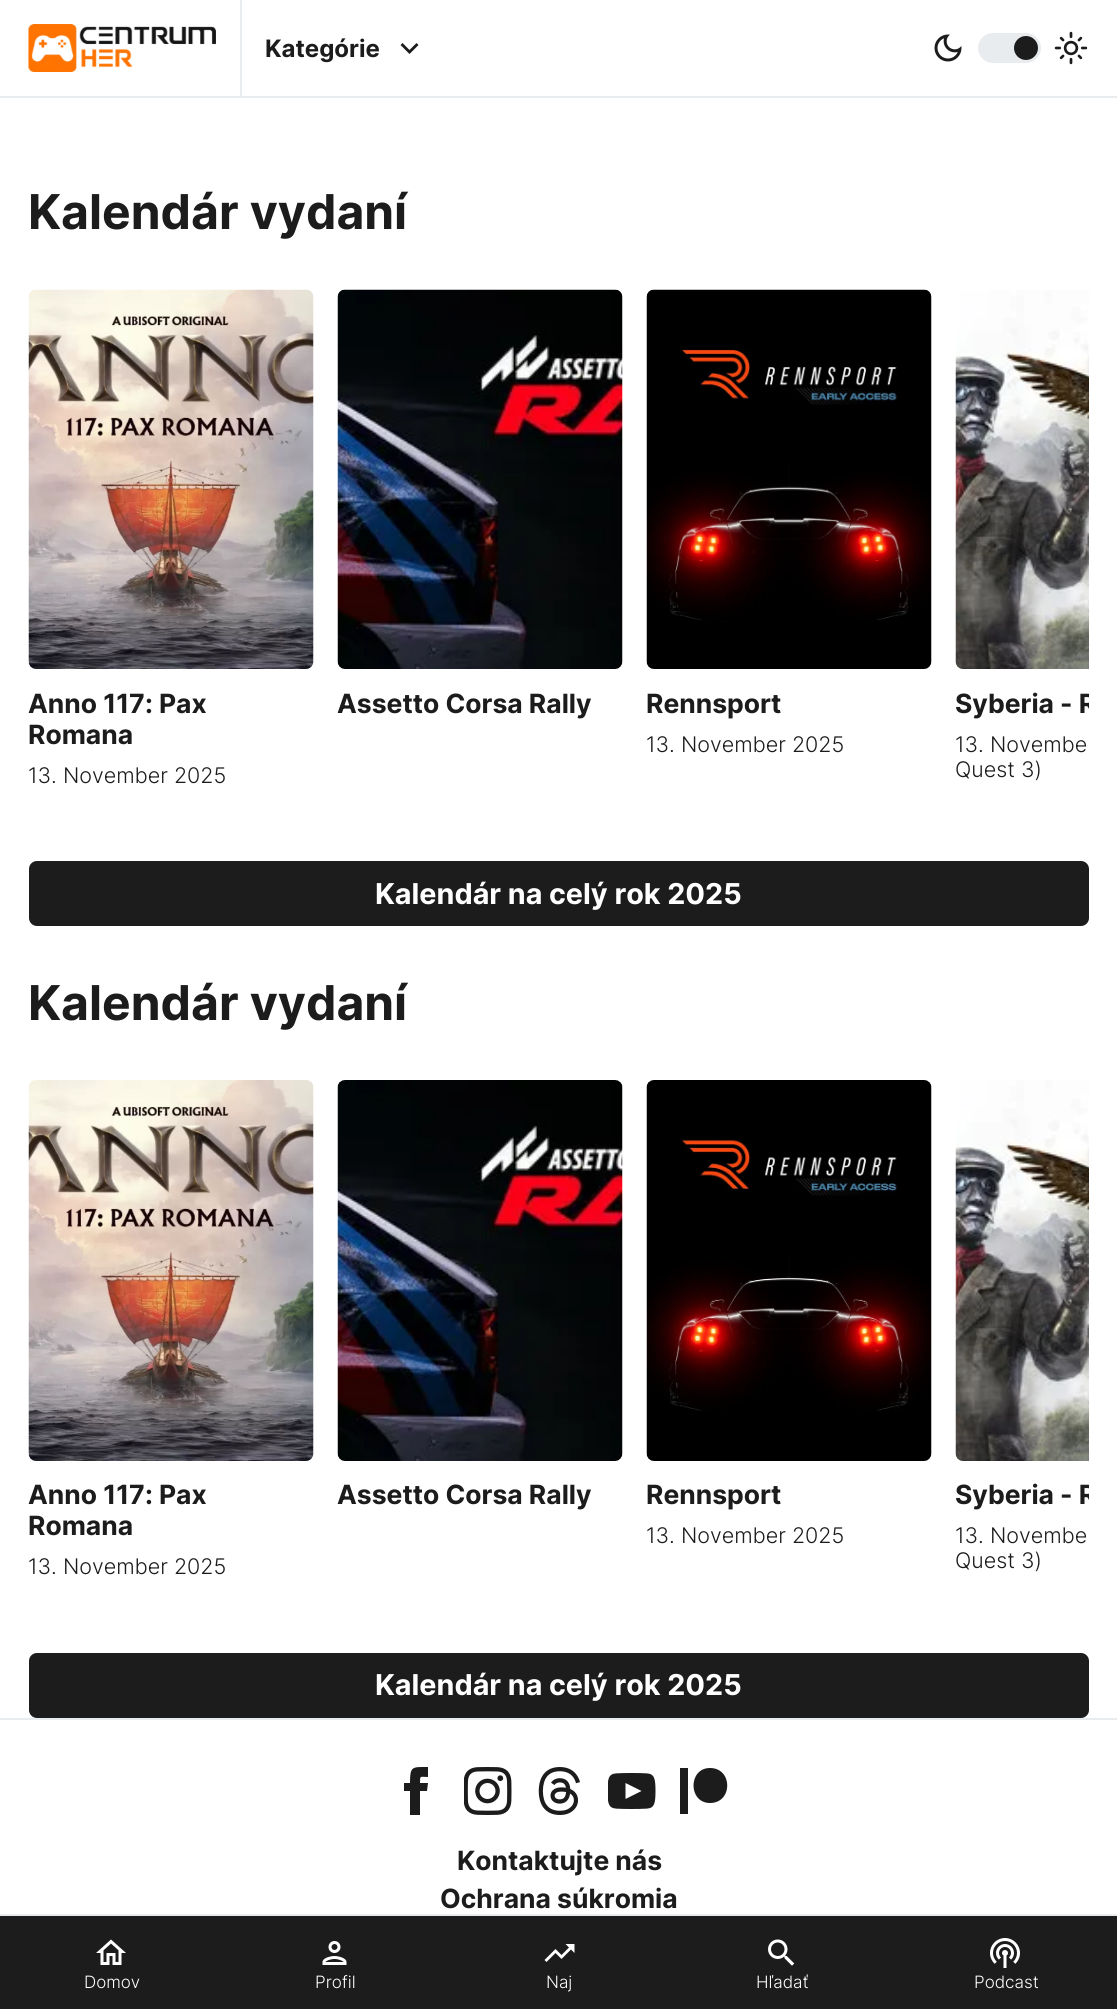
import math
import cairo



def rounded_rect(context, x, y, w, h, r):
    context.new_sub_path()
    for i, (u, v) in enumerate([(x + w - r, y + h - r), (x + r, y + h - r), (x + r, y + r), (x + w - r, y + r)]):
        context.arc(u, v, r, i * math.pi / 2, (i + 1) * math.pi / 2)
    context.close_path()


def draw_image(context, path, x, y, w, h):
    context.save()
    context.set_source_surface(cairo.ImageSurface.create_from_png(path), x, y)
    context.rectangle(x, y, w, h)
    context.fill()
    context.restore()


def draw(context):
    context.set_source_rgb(1, 1, 1)
    context.paint()
    context.set_source_rgb(233 / 255, 236 / 255, 239 / 255)
    context.rectangle(0, 96, 1117, 2)
    context.fill()
    context.rectangle(240, 0, 2, 96)
    context.fill()
    draw_image(context, "images/1.png", 28, 24, 188, 48)
    context.set_source_rgb(28 / 255, 28 / 255, 28 / 255)
    context.new_path()
    context.move_to(416.5, 43)
    context.line_to(409.5, 50)
    context.line_to(402.5, 43)
    context.line_to(400.5, 45)
    context.line_to(409.5, 54)
    context.line_to(418.5, 45)
    context.close_path()
    context.fill()
    draw_image(context, "images/2.png", 934, 34, 28, 28)
    context.set_source_rgb(233 / 255, 236 / 255, 239 / 255)
    rounded_rect(context, 978, 33, 63, 30, 15)
    context.fill()
    context.set_source_rgb(28 / 255, 28 / 255, 28 / 255)
    context.arc(1026, 48, 12, 0, 2 * math.pi)
    context.fill()
    draw_image(context, "images/3.png", 1054, 31, 34, 34)
    draw_image(context, "images/4.png", 28, 289, 286, 380)
    draw_image(context, "images/5.png", 337, 289, 286, 380)
    draw_image(context, "images/6.png", 646, 289, 286, 380)
    draw_image(context, "images/7.png", 955, 290, 134, 379)
    rounded_rect(context, 29, 861, 1060, 65, 8)
    context.fill()
    draw_image(context, "images/8.png", 28, 1080, 286, 381)
    draw_image(context, "images/9.png", 337, 1080, 286, 381)
    draw_image(context, "images/10.png", 646, 1080, 286, 381)
    draw_image(context, "images/11.png", 955, 1080, 134, 381)
    rounded_rect(context, 29, 1653, 1060, 65, 8)
    context.fill()
    context.set_source_rgb(233 / 255, 236 / 255, 239 / 255)
    context.rectangle(0, 1718, 1117, 2)
    context.fill()
    context.set_source_rgb(28 / 255, 28 / 255, 28 / 255)
    context.new_path()
    context.move_to(410, 1783)
    context.line_to(404, 1783)
    context.line_to(404, 1791)
    context.line_to(410, 1791)
    context.line_to(410, 1815)
    context.line_to(420, 1815)
    context.line_to(420, 1791)
    context.line_to(427, 1791)
    context.line_to(428, 1783)
    context.line_to(420, 1783)
    context.curve_to(420, 1775, 420, 1777, 428, 1777)
    context.line_to(428, 1767)
    context.curve_to(412, 1767, 410, 1766, 410, 1783)
    context.close_path()
    context.fill()
    draw_image(context, "images/12.png", 464, 1767, 48, 48)
    draw_image(context, "images/13.png", 538, 1767, 42, 48)
    draw_image(context, "images/14.png", 608, 1773, 48, 36)
    context.new_path()
    context.move_to(710, 1768)
    context.curve_to(688, 1768, 688, 1803, 710, 1803)
    context.curve_to(733, 1803, 733, 1768, 710, 1768)
    context.move_to(680, 1814)
    context.line_to(688, 1814)
    context.line_to(688, 1768)
    context.line_to(680, 1768)
    context.fill()
    context.set_source_rgb(233 / 255, 236 / 255, 239 / 255)
    context.rectangle(0, 1914, 1117, 2)
    context.fill()
    context.set_source_rgb(28 / 255, 28 / 255, 28 / 255)
    context.rectangle(0, 1916, 1117, 93)
    context.fill()
    draw_image(context, "images/15.png", 96, 1939, 30, 26)
    draw_image(context, "images/16.png", 322, 1941, 25, 24)
    context.set_source_rgb(1, 1, 1)
    context.new_path()
    context.move_to(565.5, 1944)
    context.line_to(569, 1947.5)
    context.line_to(561.5, 1955)
    context.line_to(555.5, 1949)
    context.line_to(544.5, 1960)
    context.line_to(546.5, 1962)
    context.line_to(555.5, 1953)
    context.line_to(561.5, 1959)
    context.line_to(571, 1949.5)
    context.line_to(574.5, 1953)
    context.line_to(574.5, 1944)
    context.close_path()
    context.fill()
    draw_image(context, "images/17.png", 768, 1939, 27, 27)
    draw_image(context, "images/18.png", 990, 1938, 30, 30)
    context.select_font_face("Inter", cairo.FontSlant.NORMAL, cairo.FontWeight.BOLD)
    context.set_font_size(24)
    context.set_source_rgb(28 / 255, 28 / 255, 28 / 255)
    context.move_to(265, 57)
    context.show_text("Kategórie")
    context.set_font_size(48)
    context.move_to(28, 229)
    context.show_text("Kalendár vydaní")
    context.set_font_size(26.5)
    context.move_to(28, 713)
    context.show_text("Anno 117: Pax")
    context.move_to(28, 744)
    context.show_text("Romana")
    context.select_font_face("Inter Light")
    context.set_font_size(21.5)
    context.move_to(28, 783)
    context.show_text("13. November 2025")
    context.select_font_face("Inter", cairo.FontSlant.NORMAL, cairo.FontWeight.BOLD)
    context.set_font_size(26.5)
    context.move_to(337, 713)
    context.show_text("Assetto Corsa Rally")
    context.move_to(646, 713)
    context.show_text("Rennsport")
    context.select_font_face("Inter Light")
    context.set_font_size(21.5)
    context.move_to(646, 752)
    context.show_text("13. November 2025")
    context.save()
    context.rectangle(29, 290, 1060, 547)
    context.clip()
    context.select_font_face("Inter", cairo.FontSlant.NORMAL, cairo.FontWeight.BOLD)
    context.set_font_size(26.5)
    context.move_to(955, 713)
    context.show_text("Syberia - R")
    context.restore()
    context.move_to(955, 752)
    context.show_text("13. Novembe")
    context.move_to(955, 777)
    context.show_text("Quest 3)")
    context.select_font_face("Inter", cairo.FontSlant.NORMAL, cairo.FontWeight.BOLD)
    context.set_font_size(28.75)
    context.set_source_rgb(1, 1, 1)
    context.move_to(375, 904)
    context.show_text("Kalendár na celý rok 2025")
    context.set_font_size(48)
    context.set_source_rgb(28 / 255, 28 / 255, 28 / 255)
    context.move_to(28, 1020)
    context.show_text("Kalendár vydaní")
    context.set_font_size(26.5)
    context.move_to(28, 1504)
    context.show_text("Anno 117: Pax")
    context.move_to(28, 1535)
    context.show_text("Romana")
    context.select_font_face("Inter Light")
    context.set_font_size(21.5)
    context.move_to(28, 1574)
    context.show_text("13. November 2025")
    context.select_font_face("Inter", cairo.FontSlant.NORMAL, cairo.FontWeight.BOLD)
    context.set_font_size(26.5)
    context.move_to(337, 1504)
    context.show_text("Assetto Corsa Rally")
    context.move_to(646, 1504)
    context.show_text("Rennsport")
    context.select_font_face("Inter Light")
    context.set_font_size(21.5)
    context.move_to(646, 1543)
    context.show_text("13. November 2025")
    context.save()
    context.rectangle(29, 1080, 1060, 549)
    context.clip()
    context.select_font_face("Inter", cairo.FontSlant.NORMAL, cairo.FontWeight.BOLD)
    context.set_font_size(26.5)
    context.move_to(955, 1504)
    context.show_text("Syberia - R")
    context.restore()
    context.move_to(955, 1543)
    context.show_text("13. Novembe")
    context.move_to(955, 1568)
    context.show_text("Quest 3)")
    context.select_font_face("Inter", cairo.FontSlant.NORMAL, cairo.FontWeight.BOLD)
    context.set_font_size(28.75)
    context.set_source_rgb(1, 1, 1)
    context.move_to(375, 1695)
    context.show_text("Kalendár na celý rok 2025")
    context.set_font_size(26.5)
    context.set_source_rgb(28 / 255, 28 / 255, 28 / 255)
    context.move_to(457, 1870)
    context.show_text("Kontaktujte nás")
    context.move_to(440, 1908)
    context.show_text("Ochrana súkromia")
    context.select_font_face("Inter Light")
    context.set_font_size(17)
    context.set_source_rgb(1, 1, 1)
    context.move_to(84, 1988)
    context.show_text("Domov")
    context.move_to(315, 1988)
    context.show_text("Profil")
    context.move_to(546, 1988)
    context.show_text("Naj")
    context.move_to(756, 1988)
    context.show_text("Hľadať")
    context.move_to(974, 1988)
    context.show_text("Podcast")


surface = cairo.ImageSurface(cairo.Format.RGB24, 1117, 2009)
context = cairo.Context(surface)
options = cairo.FontOptions()
options.set_hint_metrics(cairo.HintMetrics.OFF)
options.set_hint_style(cairo.HintStyle.NONE)
context.set_font_options(options)
context.set_miter_limit(4)
draw(context)
surface.write_to_png("out.png")
